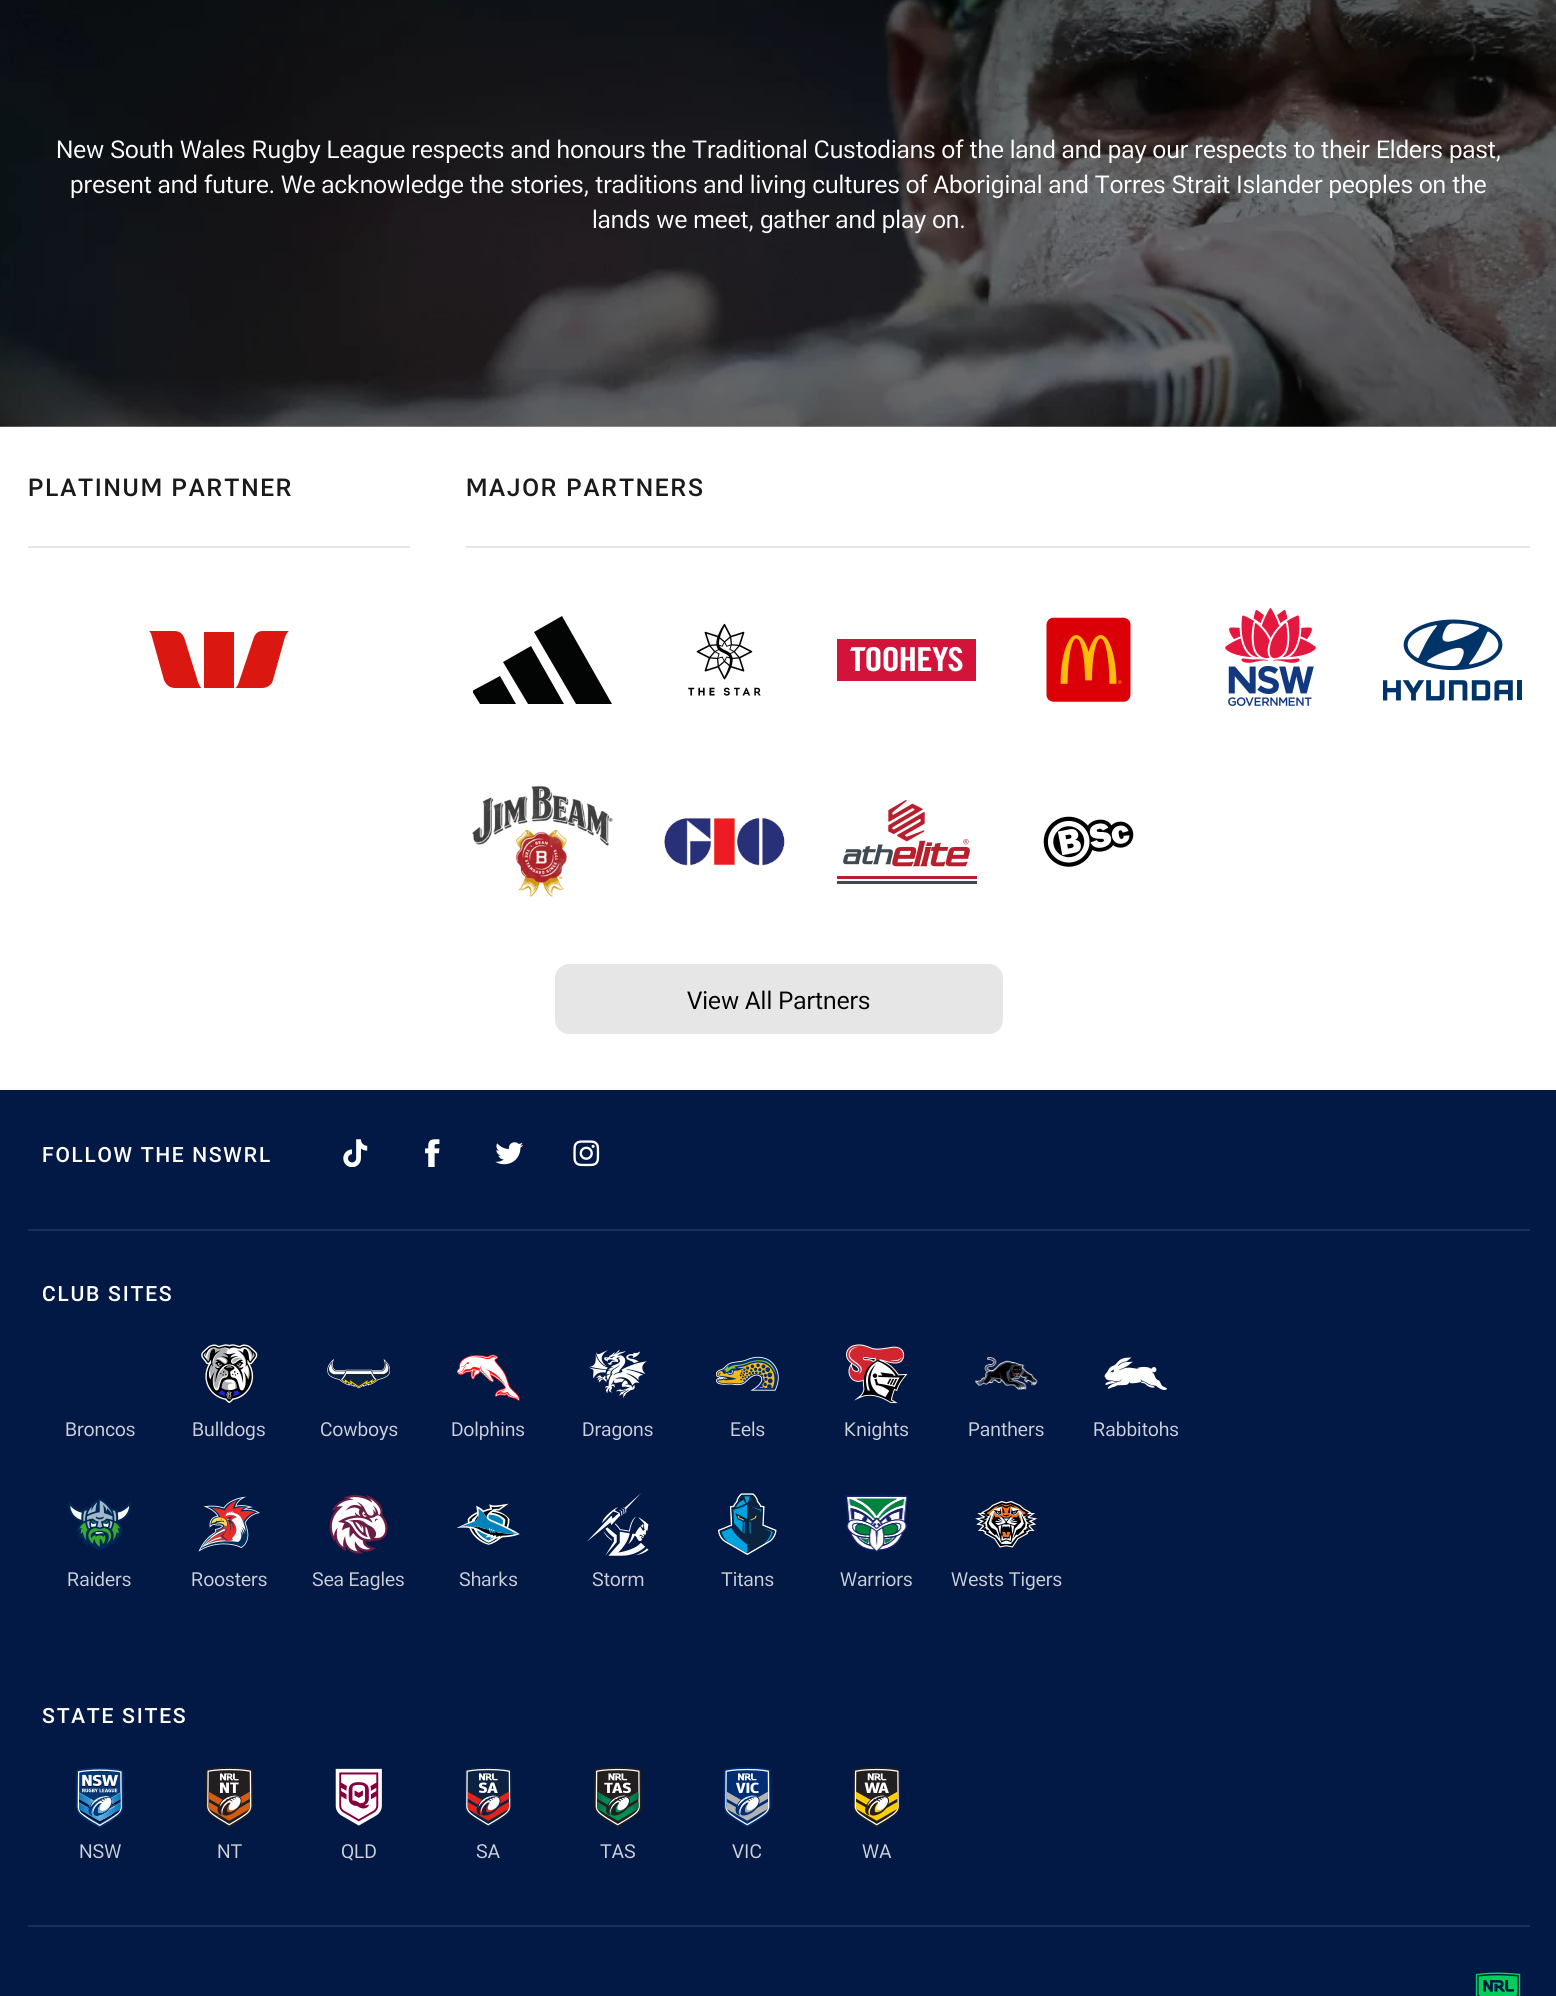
import math
import cairo



def draw_spaced(context, x, y, s, letter, word):
    context.move_to(x, y)
    for ch in s:
        context.show_text(ch)
        context.rel_move_to(letter + word * (ch == ' '), 0)


def rounded_rect(context, x, y, w, h, r):
    context.new_sub_path()
    for i, (u, v) in enumerate([(x + w - r, y + h - r), (x + r, y + h - r), (x + r, y + r), (x + w - r, y + r)]):
        context.arc(u, v, r, i * math.pi / 2, (i + 1) * math.pi / 2)
    context.close_path()


def draw_image(context, path, x, y, w, h):
    context.save()
    context.set_source_surface(cairo.ImageSurface.create_from_png(path), x, y)
    context.rectangle(x, y, w, h)
    context.fill()
    context.restore()


def draw(context):
    context.set_source_rgb(1, 1, 1)
    context.paint()
    draw_image(context, "images/1.png", 0, 0, 1556, 427)
    context.set_source_rgb(230 / 255, 230 / 255, 230 / 255)
    context.rectangle(28, 546, 382, 2)
    context.fill()
    context.set_source_rgb(218 / 255, 23 / 255, 16 / 255)
    context.new_path()
    context.move_to(198, 682)
    context.line_to(185, 640)
    context.curve_to(183, 633, 179, 631, 174, 631)
    context.line_to(149, 631)
    context.curve_to(151, 632, 152, 637, 152, 637)
    context.line_to(164, 680)
    context.curve_to(166, 685, 170, 688, 175, 688)
    context.line_to(202, 688)
    context.curve_to(200, 688, 198, 682, 198, 682)
    context.close_path()
    context.move_to(239, 682)
    context.line_to(253, 640)
    context.curve_to(255, 633, 258, 631, 263, 631)
    context.line_to(289, 631)
    context.curve_to(287, 632, 285, 637, 285, 637)
    context.line_to(273, 680)
    context.curve_to(272, 685, 267, 688, 262, 688)
    context.line_to(235, 688)
    context.curve_to(237, 688, 239, 682, 239, 682)
    context.close_path()
    context.move_to(204, 632)
    context.line_to(234, 632)
    context.line_to(234, 688)
    context.line_to(204, 688)
    context.close_path()
    context.fill()
    context.set_source_rgb(230 / 255, 230 / 255, 230 / 255)
    context.rectangle(466, 546, 1064, 2)
    context.fill()
    context.set_source_rgb(3 / 255, 4 / 255, 4 / 255)
    context.new_path()
    context.move_to(612, 704)
    context.line_to(562, 616)
    context.line_to(534, 632)
    context.line_to(576, 704)
    context.close_path()
    context.fill()
    context.new_path()
    context.move_to(564, 704)
    context.line_to(531, 646)
    context.line_to(503, 662)
    context.line_to(528, 704)
    context.close_path()
    context.fill()
    context.save()
    context.rectangle(473, 590, 140, 140)
    context.clip()
    context.new_path()
    context.move_to(516, 704)
    context.line_to(500, 676)
    context.line_to(472, 691)
    context.line_to(480, 704)
    context.close_path()
    context.fill()
    context.restore()
    draw_image(context, "images/2.png", 688, 623, 73, 73)
    draw_image(context, "images/3.png", 837, 639, 139, 42)
    draw_image(context, "images/4.png", 1046, 617, 85, 85)
    draw_image(context, "images/5.png", 1225, 608, 91, 98)
    draw_image(context, "images/6.png", 1383, 619, 139, 82)
    draw_image(context, "images/7.png", 472, 786, 141, 111)
    draw_image(context, "images/8.png", 664, 817, 121, 49)
    draw_image(context, "images/9.png", 837, 800, 140, 84)
    draw_image(context, "images/10.png", 1043, 816, 91, 51)
    context.set_source_rgb(230 / 255, 230 / 255, 230 / 255)
    rounded_rect(context, 557, 966, 444, 66, 12)
    context.fill_preserve()
    context.set_line_width(4)
    context.stroke()
    context.set_source_rgb(2 / 255, 24 / 255, 69 / 255)
    context.rectangle(0, 1090, 1556, 906)
    context.fill()
    context.set_source_rgb(27 / 255, 47 / 255, 88 / 255)
    context.rectangle(28, 1229, 1502, 2)
    context.fill()
    draw_image(context, "images/11.png", 343, 1139, 25, 28)
    draw_image(context, "images/12.png", 425, 1139, 15, 28)
    draw_image(context, "images/13.png", 495, 1142, 28, 23)
    draw_image(context, "images/14.png", 573, 1140, 27, 27)
    context.rectangle(28, 1925, 1502, 2)
    context.fill()
    draw_image(context, "images/15.png", 201, 1344, 57, 60)
    draw_image(context, "images/16.png", 327, 1359, 63, 30)
    draw_image(context, "images/17.png", 457, 1354, 63, 47)
    draw_image(context, "images/18.png", 588, 1349, 59, 49)
    draw_image(context, "images/19.png", 716, 1356, 63, 35)
    draw_image(context, "images/20.png", 846, 1344, 62, 60)
    draw_image(context, "images/21.png", 975, 1357, 63, 33)
    draw_image(context, "images/22.png", 1104, 1357, 63, 33)
    draw_image(context, "images/23.png", 68, 1498, 63, 53)
    draw_image(context, "images/24.png", 198, 1496, 62, 56)
    draw_image(context, "images/25.png", 329, 1494, 59, 60)
    draw_image(context, "images/26.png", 457, 1503, 63, 42)
    draw_image(context, "images/27.png", 587, 1493, 62, 63)
    draw_image(context, "images/28.png", 718, 1493, 59, 62)
    draw_image(context, "images/29.png", 845, 1495, 64, 58)
    draw_image(context, "images/30.png", 975, 1501, 63, 47)
    draw_image(context, "images/31.png", 76, 1768, 48, 60)
    draw_image(context, "images/32.png", 205, 1767, 48, 60)
    draw_image(context, "images/33.png", 335, 1768, 47, 58)
    draw_image(context, "images/34.png", 465, 1767, 47, 60)
    draw_image(context, "images/35.png", 594, 1767, 48, 60)
    draw_image(context, "images/36.png", 723, 1767, 48, 60)
    draw_image(context, "images/37.png", 853, 1767, 48, 60)
    draw_image(context, "images/38.png", 1475, 1972, 46, 24)
    context.select_font_face("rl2")
    context.set_font_size(24.5)
    context.set_source_rgb(1, 1, 1)
    context.move_to(56, 158)
    context.show_text("New South Wales Rugby League respects and honours the Traditional Custodians of the land and pay our respects to their Elders past,")
    context.move_to(70, 193)
    context.show_text("present and future. We acknowledge the stories, traditions and living cultures of Aboriginal and Torres Strait Islander peoples on the")
    context.move_to(592, 228)
    context.show_text("lands we meet, gather and play on.")
    context.select_font_face("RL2 Medium")
    context.set_source_rgb(26 / 255, 26 / 255, 26 / 255)
    draw_spaced(context, 28, 496, "PLATINUM PARTNER", 1.75, 0)
    draw_spaced(context, 466, 496, "MAJOR PARTNERS", 1.75, 0)
    context.select_font_face("rl2")
    context.set_source_rgb(0, 0, 0)
    context.move_to(687, 1009)
    context.show_text("View All Partners")
    context.select_font_face("RL2 Medium")
    context.set_font_size(21)
    context.set_source_rgb(1, 1, 1)
    draw_spaced(context, 42, 1162, "FOLLOW THE NSWRL", 1.75, 0)
    draw_spaced(context, 42, 1301, "CLUB SITES", 1.75, 0)
    context.select_font_face("rl2")
    context.set_font_size(19.25)
    context.set_source_rgb(204 / 255, 209 / 255, 218 / 255)
    context.move_to(65, 1436)
    context.show_text("Broncos")
    context.move_to(192, 1436)
    context.show_text("Bulldogs")
    context.move_to(320, 1436)
    context.show_text("Cowboys")
    context.move_to(451, 1436)
    context.show_text("Dolphins")
    context.move_to(582, 1436)
    context.show_text("Dragons")
    context.move_to(730, 1436)
    context.show_text("Eels")
    context.move_to(844, 1436)
    context.show_text("Knights")
    context.move_to(968, 1436)
    context.show_text("Panthers")
    context.move_to(1093, 1436)
    context.show_text("Rabbitohs")
    context.move_to(67, 1586)
    context.show_text("Raiders")
    context.move_to(191, 1586)
    context.show_text("Roosters")
    context.move_to(312, 1586)
    context.show_text("Sea Eagles")
    context.move_to(459, 1586)
    context.show_text("Sharks")
    context.move_to(592, 1586)
    context.show_text("Storm")
    context.move_to(721, 1586)
    context.show_text("Titans")
    context.move_to(840, 1586)
    context.show_text("Warriors")
    context.move_to(951, 1586)
    context.show_text("Wests Tigers")
    context.select_font_face("RL2 Medium")
    context.set_font_size(21)
    context.set_source_rgb(1, 1, 1)
    draw_spaced(context, 42, 1723, "STATE SITES", 1.75, 0)
    context.select_font_face("rl2")
    context.set_font_size(19.25)
    context.set_source_rgb(204 / 255, 209 / 255, 218 / 255)
    context.move_to(79, 1858)
    context.show_text("NSW")
    context.move_to(217, 1858)
    context.show_text("NT")
    context.move_to(341, 1858)
    context.show_text("QLD")
    context.move_to(476, 1858)
    context.show_text("SA")
    context.move_to(600, 1858)
    context.show_text("TAS")
    context.move_to(732, 1858)
    context.show_text("VIC")
    context.move_to(862, 1858)
    context.show_text("WA")


surface = cairo.ImageSurface(cairo.Format.RGB24, 1556, 1996)
context = cairo.Context(surface)
options = cairo.FontOptions()
options.set_hint_metrics(cairo.HintMetrics.OFF)
options.set_hint_style(cairo.HintStyle.NONE)
context.set_font_options(options)
context.set_miter_limit(4)
draw(context)
surface.write_to_png("out.png")
